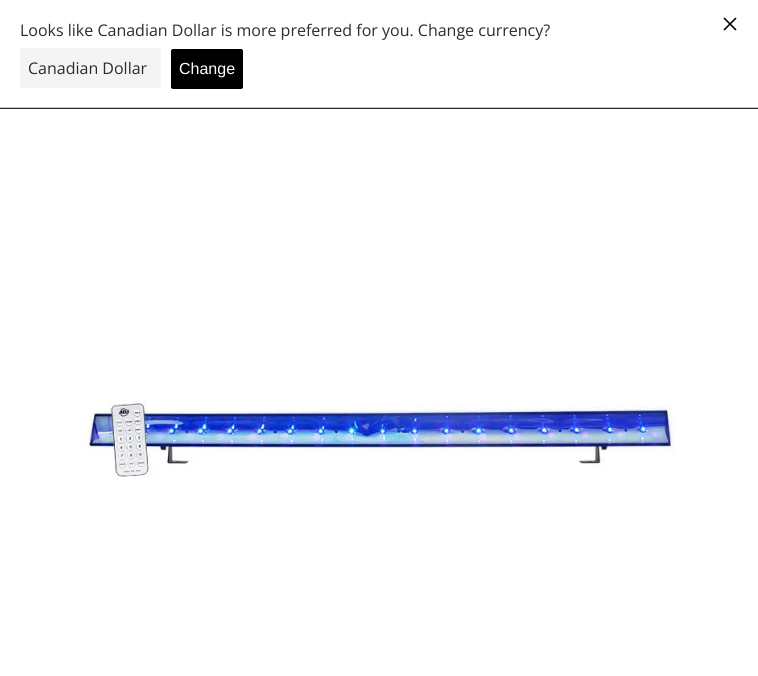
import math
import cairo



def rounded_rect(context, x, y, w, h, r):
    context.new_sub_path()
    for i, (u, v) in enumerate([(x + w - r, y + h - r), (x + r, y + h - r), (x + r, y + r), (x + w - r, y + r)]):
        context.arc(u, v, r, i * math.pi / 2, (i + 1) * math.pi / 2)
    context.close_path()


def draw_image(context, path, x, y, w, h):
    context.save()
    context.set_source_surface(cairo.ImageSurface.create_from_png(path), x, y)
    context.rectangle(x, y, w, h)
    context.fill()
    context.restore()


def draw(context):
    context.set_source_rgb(1, 1, 1)
    context.paint()
    context.set_source_rgb(204 / 255, 204 / 255, 204 / 255)
    context.rectangle(0, 107, 758, 1)
    context.fill()
    context.set_source_rgb(244 / 255, 244 / 255, 244 / 255)
    rounded_rect(context, 20, 48, 141, 40, 2)
    context.fill()
    context.set_source_rgb(0, 0, 0)
    rounded_rect(context, 171, 49, 72, 40, 2)
    context.fill()
    draw_image(context, "images/1.png", 723, 17, 14, 14)
    context.set_source_rgb(40 / 255, 40 / 255, 40 / 255)
    context.rectangle(0, 108, 758, 1)
    context.fill()
    draw_image(context, "images/2.png", 83, 400, 592, 77)
    context.select_font_face("Open Sans")
    context.set_font_size(16)
    context.set_source_rgb(39 / 255, 46 / 255, 49 / 255)
    context.move_to(20, 36)
    context.show_text("Looks like Canadian Dollar is more preferred for you. Change currency?")
    context.move_to(28, 74)
    context.show_text("Canadian Dollar")
    context.select_font_face("Arimo")
    context.set_source_rgb(1, 1, 1)
    context.move_to(179, 74)
    context.show_text("Change")


surface = cairo.ImageSurface(cairo.Format.RGB24, 758, 676)
context = cairo.Context(surface)
options = cairo.FontOptions()
options.set_hint_metrics(cairo.HintMetrics.OFF)
options.set_hint_style(cairo.HintStyle.NONE)
context.set_font_options(options)
context.set_miter_limit(4)
draw(context)
surface.write_to_png("out.png")
